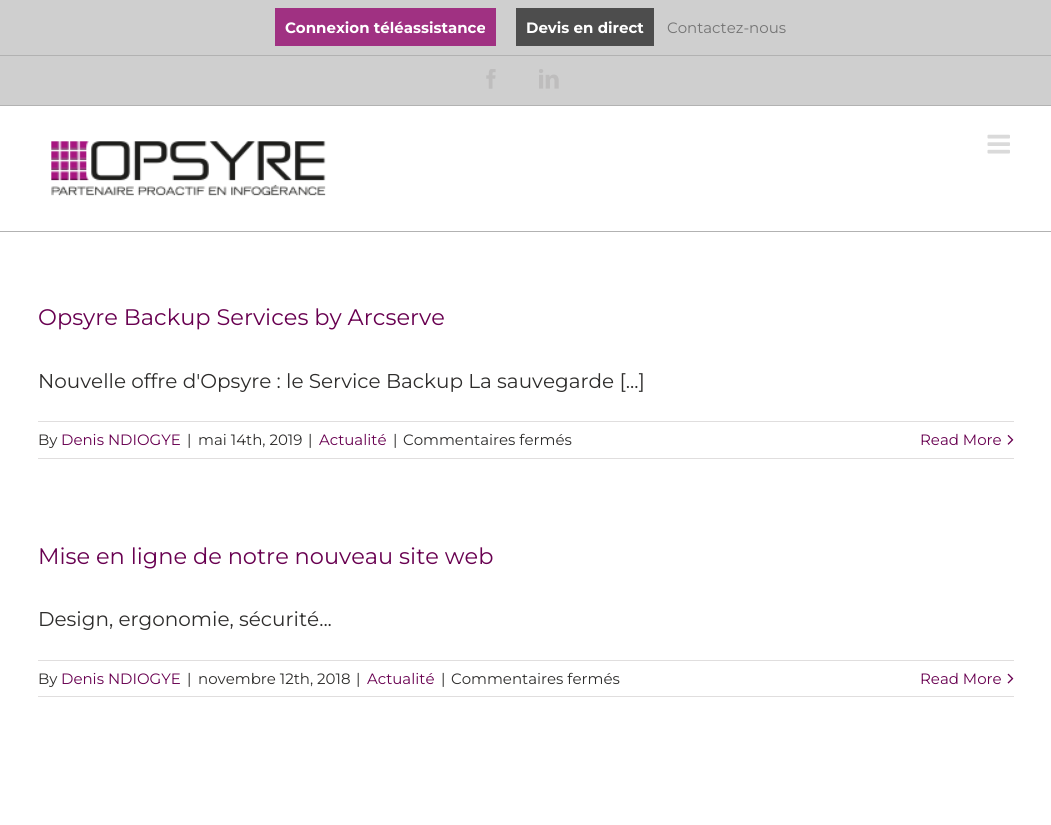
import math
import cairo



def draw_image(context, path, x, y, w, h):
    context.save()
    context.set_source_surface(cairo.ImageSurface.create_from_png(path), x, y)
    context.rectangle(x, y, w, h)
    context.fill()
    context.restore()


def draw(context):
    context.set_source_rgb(1, 1, 1)
    context.paint()
    context.set_source_rgb(207 / 255, 207 / 255, 207 / 255)
    context.rectangle(0, 0, 1051, 105)
    context.fill()
    context.set_source_rgb(178 / 255, 178 / 255, 178 / 255)
    context.rectangle(0, 105, 1051, 1)
    context.fill()
    context.rectangle(0, 55, 1051, 1)
    context.fill()
    context.set_source_rgb(160 / 255, 49 / 255, 130 / 255)
    context.rectangle(275, 8, 221, 38)
    context.fill()
    context.set_source_rgb(77 / 255, 77 / 255, 77 / 255)
    context.rectangle(516, 8, 138, 38)
    context.fill()
    draw_image(context, "images/1.png", 486, 69, 10, 20)
    draw_image(context, "images/2.png", 539, 69, 20, 20)
    context.set_source_rgb(178 / 255, 178 / 255, 178 / 255)
    context.rectangle(0, 231, 1051, 1)
    context.fill()
    draw_image(context, "images/3.png", 51, 141, 275, 55)
    draw_image(context, "images/4.png", 987, 134, 23, 20)
    context.set_source_rgb(224 / 255, 222 / 255, 222 / 255)
    context.rectangle(38, 421, 976, 1)
    context.fill()
    context.rectangle(38, 458, 976, 1)
    context.fill()
    draw_image(context, "images/5.png", 1007, 435, 7, 10)
    context.rectangle(38, 660, 976, 1)
    context.fill()
    context.rectangle(38, 696, 976, 1)
    context.fill()
    draw_image(context, "images/6.png", 1007, 673, 7, 11)
    context.select_font_face("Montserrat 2 Thin")
    context.set_font_size(15)
    context.set_source_rgb(1, 1, 1)
    context.move_to(285, 33)
    context.show_text("Connexion téléassistance")
    context.move_to(526, 33)
    context.show_text("Devis en direct")
    context.select_font_face("Montserrat Thin")
    context.set_source_rgb(116 / 255, 116 / 255, 116 / 255)
    context.move_to(667, 33)
    context.show_text("Contactez-nous")
    context.set_font_size(22.5)
    context.set_source_rgb(104 / 255, 0, 80 / 255)
    context.move_to(38, 325)
    context.show_text("Opsyre Backup Services by Arcserve")
    context.set_font_size(20)
    context.set_source_rgb(46 / 255, 45 / 255, 44 / 255)
    context.move_to(38, 388)
    context.show_text("Nouvelle offre d'Opsyre : le Service Backup La sauvegarde [...]")
    context.set_font_size(15)
    context.move_to(38, 445)
    context.show_text("By")
    context.set_source_rgb(104 / 255, 0, 80 / 255)
    context.move_to(61, 445)
    context.show_text("Denis NDIOGYE")
    context.set_source_rgb(46 / 255, 45 / 255, 44 / 255)
    context.move_to(187, 445)
    context.show_text("|")
    context.move_to(198, 445)
    context.show_text("mai 14th, 2019")
    context.move_to(308, 445)
    context.show_text("|")
    context.set_source_rgb(104 / 255, 0, 80 / 255)
    context.move_to(319, 445)
    context.show_text("Actualité")
    context.set_source_rgb(46 / 255, 45 / 255, 44 / 255)
    context.move_to(393, 445)
    context.show_text("|")
    context.move_to(403, 445)
    context.show_text("Commentaires fermés")
    context.set_source_rgb(104 / 255, 0, 80 / 255)
    context.move_to(920, 445)
    context.show_text("Read More")
    context.set_font_size(22.5)
    context.move_to(38, 564)
    context.show_text("Mise en ligne de notre nouveau site web")
    context.set_font_size(20)
    context.set_source_rgb(46 / 255, 45 / 255, 44 / 255)
    context.move_to(38, 626)
    context.show_text("Design, ergonomie, sécurité...")
    context.set_font_size(15)
    context.move_to(38, 684)
    context.show_text("By")
    context.set_source_rgb(104 / 255, 0, 80 / 255)
    context.move_to(61, 684)
    context.show_text("Denis NDIOGYE")
    context.set_source_rgb(46 / 255, 45 / 255, 44 / 255)
    context.move_to(187, 684)
    context.show_text("|")
    context.move_to(198, 684)
    context.show_text("novembre 12th, 2018")
    context.move_to(356, 684)
    context.show_text("|")
    context.set_source_rgb(104 / 255, 0, 80 / 255)
    context.move_to(367, 684)
    context.show_text("Actualité")
    context.set_source_rgb(46 / 255, 45 / 255, 44 / 255)
    context.move_to(441, 684)
    context.show_text("|")
    context.move_to(451, 684)
    context.show_text("Commentaires fermés")
    context.set_source_rgb(104 / 255, 0, 80 / 255)
    context.move_to(920, 684)
    context.show_text("Read More")


surface = cairo.ImageSurface(cairo.Format.RGB24, 1051, 825)
context = cairo.Context(surface)
options = cairo.FontOptions()
options.set_hint_metrics(cairo.HintMetrics.OFF)
options.set_hint_style(cairo.HintStyle.NONE)
context.set_font_options(options)
context.set_miter_limit(4)
draw(context)
surface.write_to_png("out.png")
